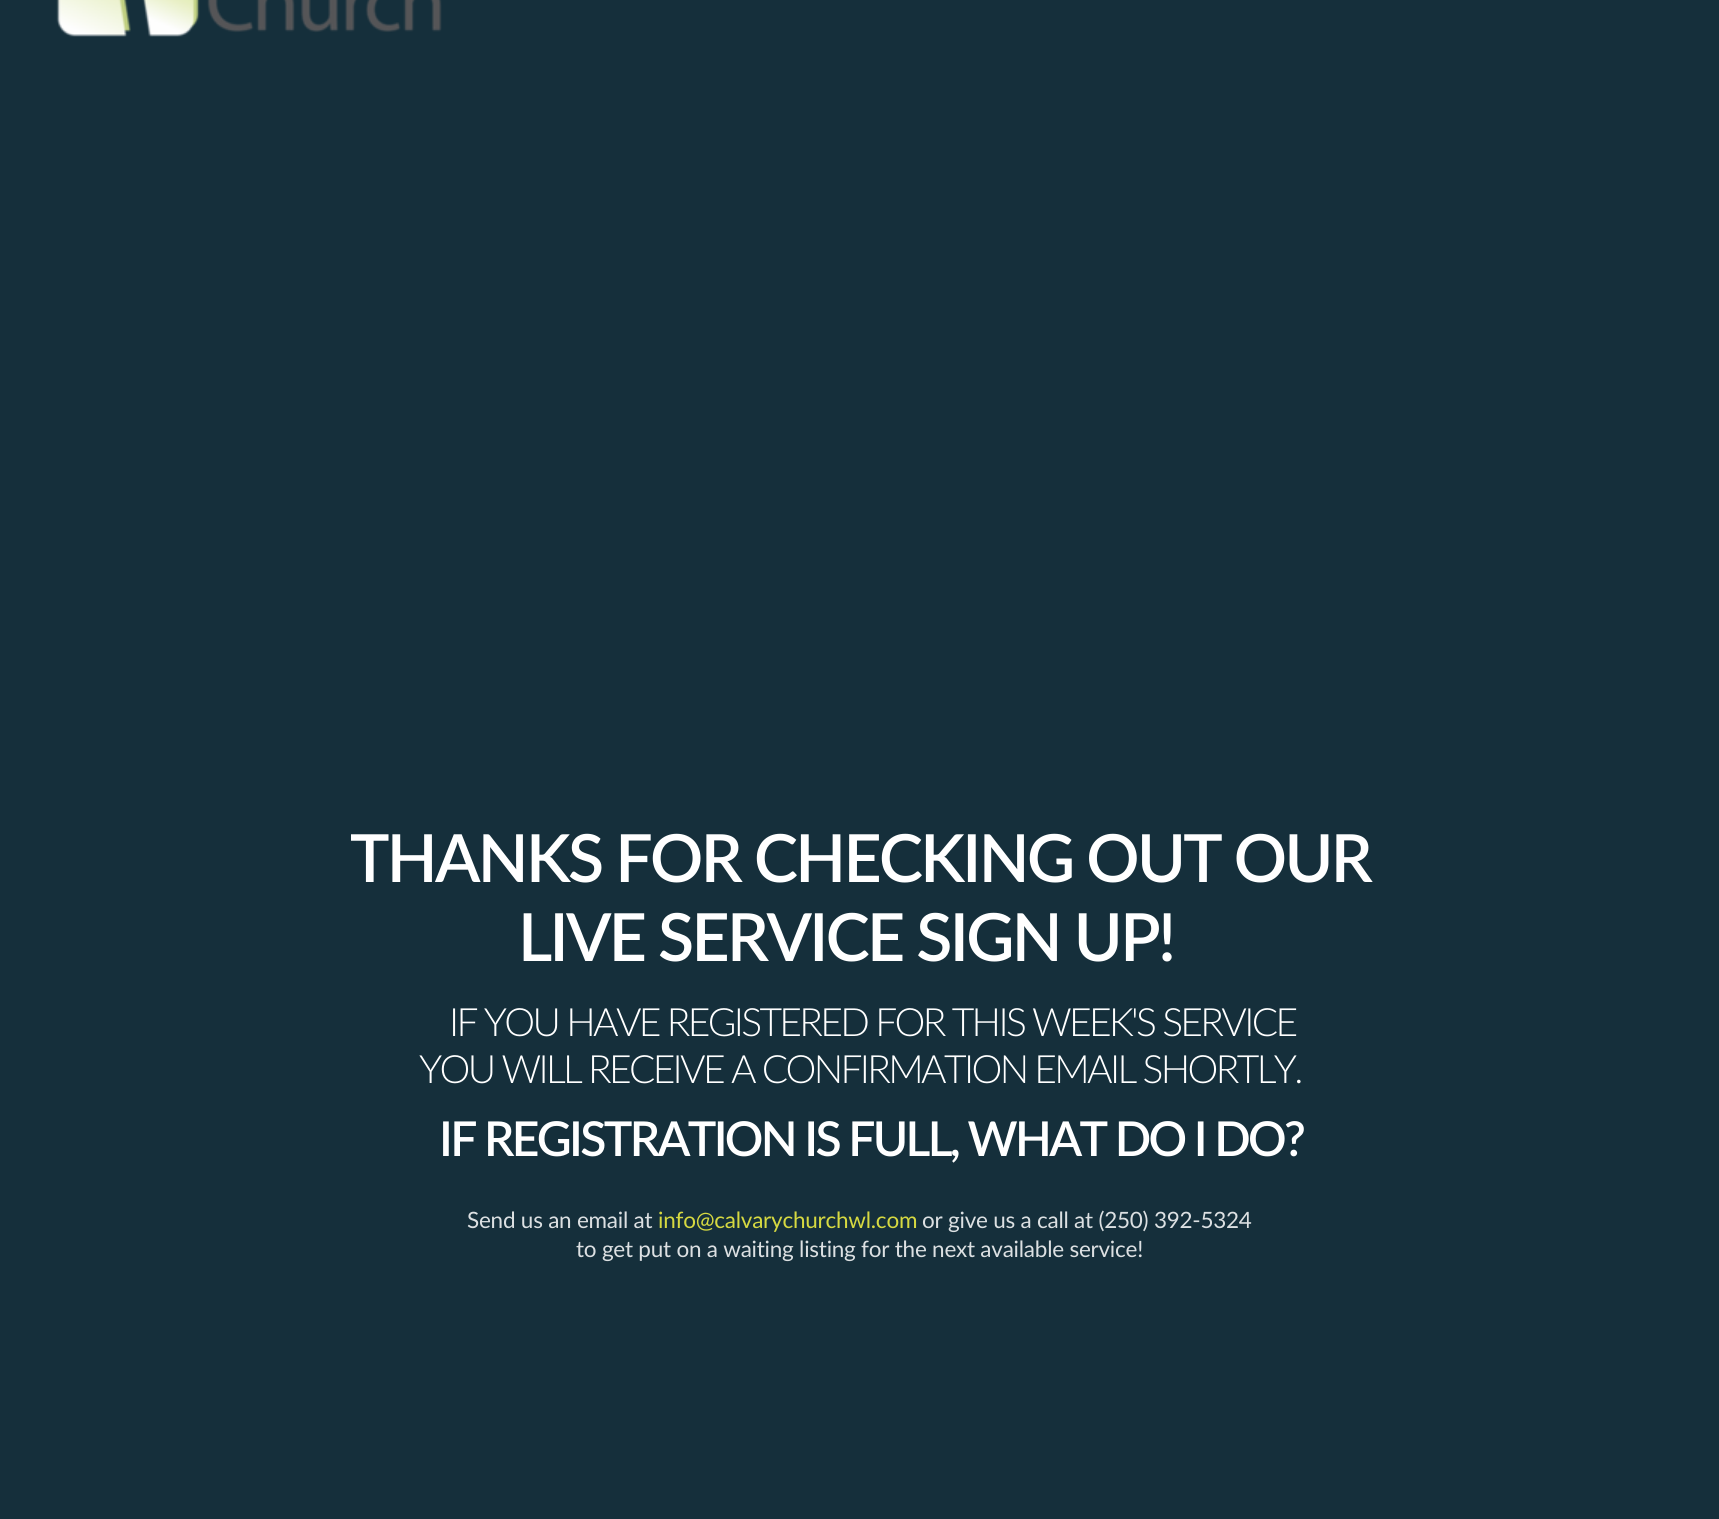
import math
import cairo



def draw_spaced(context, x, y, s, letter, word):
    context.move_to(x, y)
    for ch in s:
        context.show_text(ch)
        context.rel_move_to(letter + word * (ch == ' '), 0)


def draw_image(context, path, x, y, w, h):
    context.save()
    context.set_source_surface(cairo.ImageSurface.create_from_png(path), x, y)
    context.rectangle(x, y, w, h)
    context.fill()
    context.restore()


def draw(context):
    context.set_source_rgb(21 / 255, 47 / 255, 59 / 255)
    context.paint()
    draw_image(context, "images/1.png", 56, 0, 386, 37)
    context.select_font_face("Lato SemiBold")
    context.set_font_size(66.25)
    context.set_source_rgb(1, 1, 1)
    draw_spaced(context, 350, 882, "THANKS FOR CHECKING OUT OUR", -2.65, 0)
    draw_spaced(context, 518, 961, "LIVE SERVICE SIGN UP!", -2.65, 0)
    context.select_font_face("Lato Light")
    context.set_font_size(39)
    draw_spaced(context, 449, 1036, "IF YOU HAVE REGISTERED FOR THIS WEEK'S SERVICE", -2.65, 0)
    draw_spaced(context, 419, 1083, "YOU WILL RECEIVE A CONFIRMATION EMAIL SHORTLY.", -2.65, 0)
    context.select_font_face("Lato SemiBold")
    context.set_font_size(48)
    draw_spaced(context, 439, 1156, "IF REGISTRATION IS FULL, WHAT DO I DO?", -2.65, 0)
    context.select_font_face("Lato")
    context.set_font_size(22.5)
    context.set_source_rgb(220 / 255, 224 / 255, 226 / 255)
    draw_spaced(context, 467, 1228, "Send us an email at", -0.23, 0)
    context.set_source_rgb(214 / 255, 217 / 255, 65 / 255)
    draw_spaced(context, 658, 1228, "info@calvarychurchwl.com", -0.23, 0)
    context.set_source_rgb(220 / 255, 224 / 255, 226 / 255)
    draw_spaced(context, 922, 1228, "or give us a call at (250) 392-5324", -0.23, 0)
    draw_spaced(context, 576, 1257, "to get put on a waiting listing for the next available service!", -0.23, 0)


surface = cairo.ImageSurface(cairo.Format.RGB24, 1719, 1519)
context = cairo.Context(surface)
options = cairo.FontOptions()
options.set_hint_metrics(cairo.HintMetrics.OFF)
options.set_hint_style(cairo.HintStyle.NONE)
context.set_font_options(options)
context.set_miter_limit(4)
draw(context)
surface.write_to_png("out.png")
